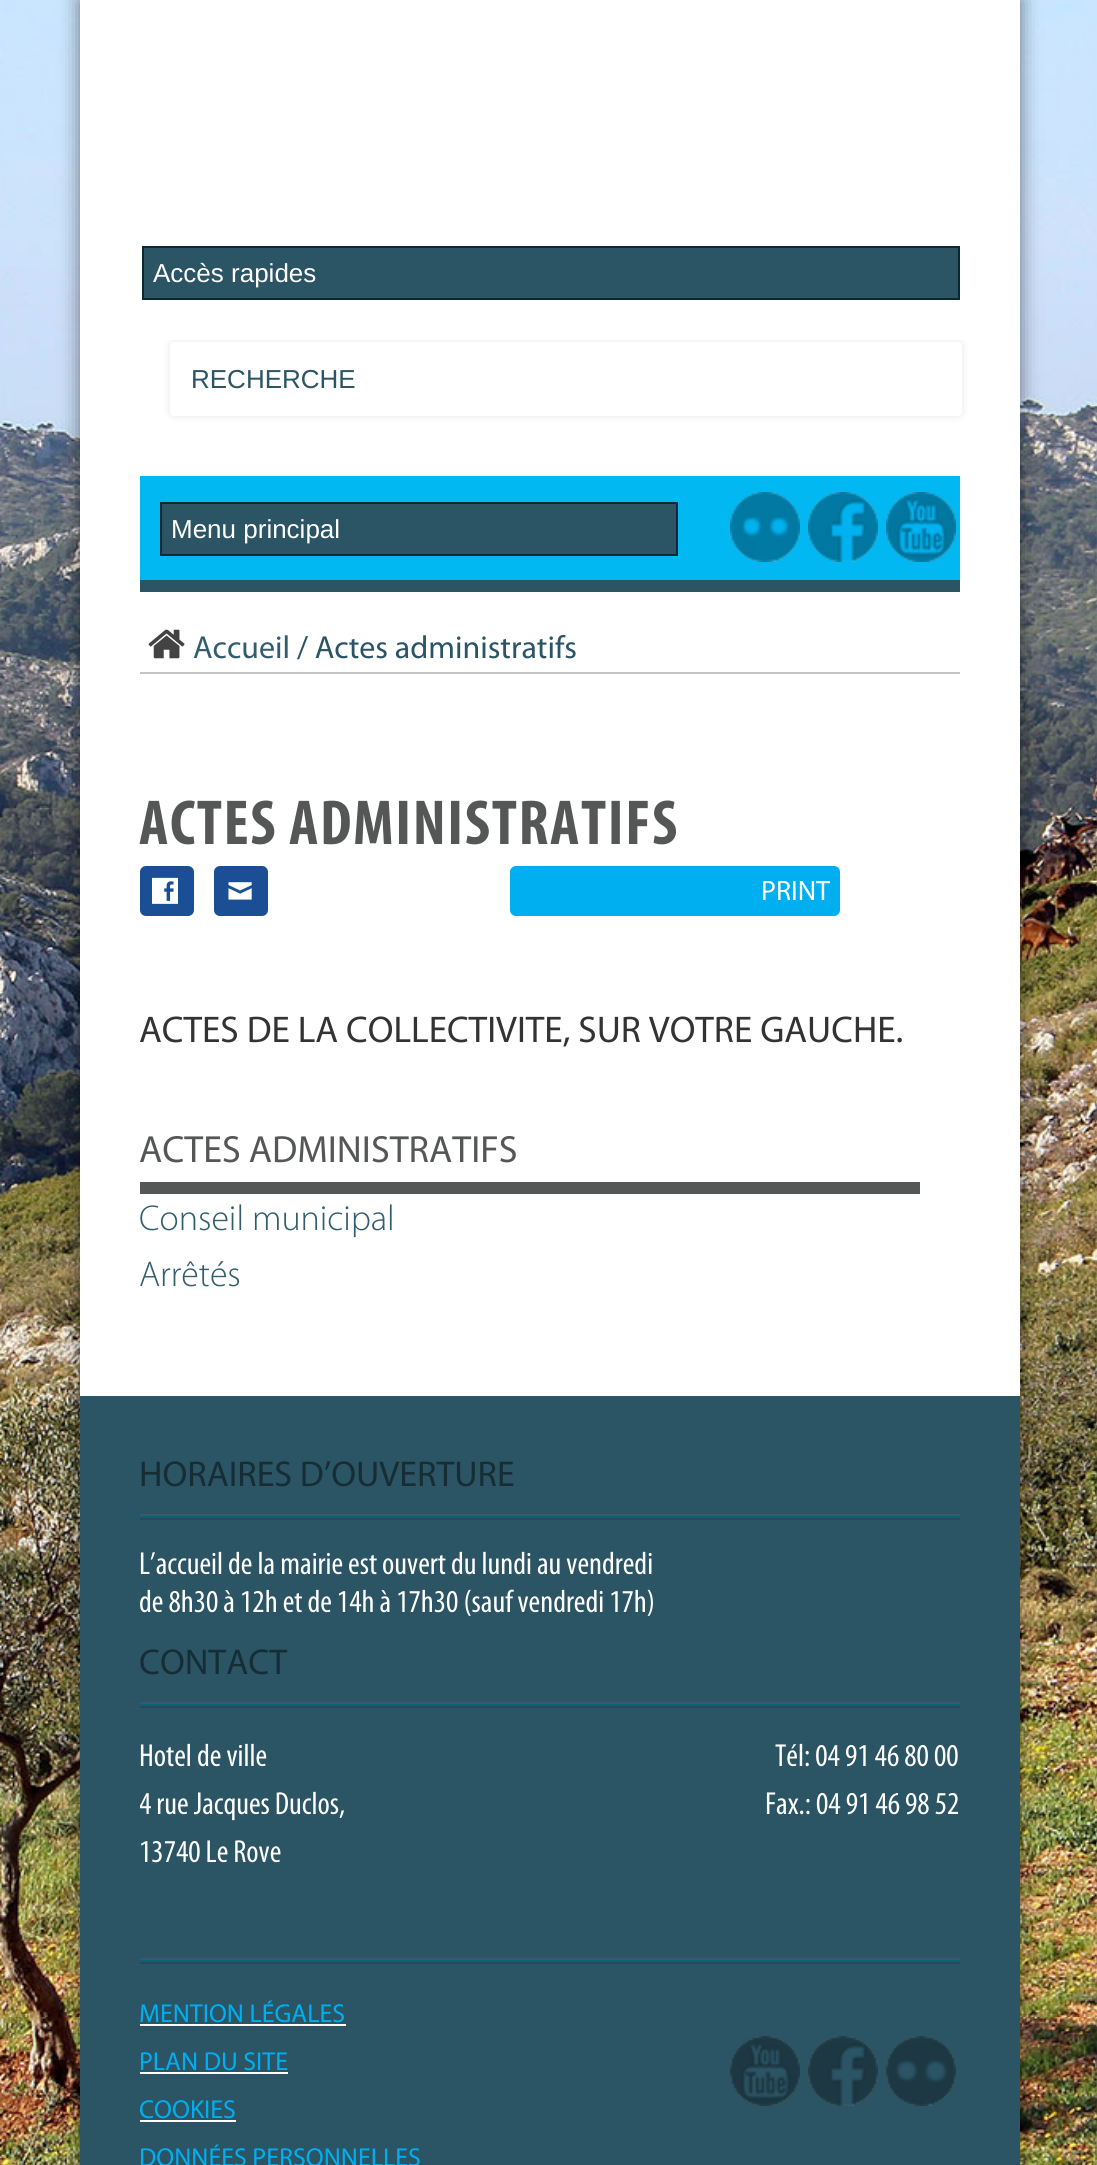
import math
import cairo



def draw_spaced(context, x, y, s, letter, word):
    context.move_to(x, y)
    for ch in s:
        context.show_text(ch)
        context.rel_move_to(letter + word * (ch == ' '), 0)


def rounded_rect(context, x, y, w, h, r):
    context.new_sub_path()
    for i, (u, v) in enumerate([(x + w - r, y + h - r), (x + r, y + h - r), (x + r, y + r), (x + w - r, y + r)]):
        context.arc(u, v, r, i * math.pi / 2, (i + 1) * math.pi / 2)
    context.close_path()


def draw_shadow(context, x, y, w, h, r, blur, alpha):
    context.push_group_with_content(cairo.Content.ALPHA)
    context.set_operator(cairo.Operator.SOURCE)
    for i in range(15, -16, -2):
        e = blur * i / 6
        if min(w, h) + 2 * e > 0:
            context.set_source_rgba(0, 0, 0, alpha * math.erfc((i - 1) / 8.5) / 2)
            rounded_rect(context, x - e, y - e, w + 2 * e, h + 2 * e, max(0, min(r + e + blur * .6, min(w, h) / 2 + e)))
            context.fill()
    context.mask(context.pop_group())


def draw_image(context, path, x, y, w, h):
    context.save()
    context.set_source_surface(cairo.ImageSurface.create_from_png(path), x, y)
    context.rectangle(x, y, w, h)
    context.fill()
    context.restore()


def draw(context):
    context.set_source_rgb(1, 1, 1)
    context.paint()
    draw_image(context, "images/1.png", 0, 0, 1097, 2165)
    context.set_source_rgb(0, 0, 0)
    draw_shadow(context, 80, 0, 940, 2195, 0, 10, 0.5)
    context.set_source_rgb(1, 1, 1)
    context.rectangle(80, 0, 940, 1396)
    context.fill()
    context.set_source_rgb(43 / 255, 84 / 255, 100 / 255)
    context.rectangle(143, 247, 816, 52)
    context.fill_preserve()
    context.set_source_rgb(11 / 255, 39 / 255, 49 / 255)
    context.stroke()
    context.save()
    context.rectangle(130, 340, 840, 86)
    context.clip()
    context.set_source_rgb(0, 0, 0)
    draw_shadow(context, 170, 342, 792, 74, 4, 4, 0.1)
    context.restore()
    context.set_source_rgb(1, 1, 1)
    rounded_rect(context, 170, 342, 792, 74, 4)
    context.fill()
    context.set_source_rgb(2 / 255, 184 / 255, 242 / 255)
    context.rectangle(140, 476, 820, 104)
    context.fill()
    context.set_source_rgb(43 / 255, 84 / 255, 100 / 255)
    context.rectangle(140, 580, 820, 12)
    context.fill()
    context.rectangle(161, 503, 516, 52)
    context.fill_preserve()
    context.set_source_rgb(11 / 255, 39 / 255, 49 / 255)
    context.stroke()
    draw_image(context, "images/2.png", 730, 492, 70, 70)
    draw_image(context, "images/3.png", 808, 492, 70, 70)
    draw_image(context, "images/4.png", 886, 492, 70, 70)
    context.set_source_rgb(197 / 255, 196 / 255, 196 / 255)
    context.rectangle(140, 672, 820, 2)
    context.fill()
    draw_image(context, "images/5.png", 148, 629, 37, 30)
    context.set_source_rgb(26 / 255, 78 / 255, 149 / 255)
    rounded_rect(context, 140, 866, 54, 50, 6)
    context.fill()
    draw_image(context, "images/6.png", 152, 877, 26, 27)
    rounded_rect(context, 214, 866, 54, 50, 6)
    context.fill()
    draw_image(context, "images/7.png", 228, 882, 24, 18)
    context.set_source_rgb(0, 175 / 255, 240 / 255)
    rounded_rect(context, 510, 866, 330, 50, 6)
    context.fill()
    context.set_source_rgb(85 / 255, 87 / 255, 86 / 255)
    context.rectangle(140, 1182, 780, 12)
    context.fill()
    context.set_source_rgb(43 / 255, 84 / 255, 100 / 255)
    context.rectangle(80, 1396, 940, 769)
    context.fill()
    context.set_source_rgb(19 / 255, 93 / 255, 121 / 255)
    context.rectangle(140, 1516, 820, 2)
    context.fill()
    context.set_source_rgb(53 / 255, 92 / 255, 107 / 255)
    context.rectangle(140, 1514, 820, 2)
    context.fill()
    context.set_source_rgb(38 / 255, 74 / 255, 88 / 255)
    context.rectangle(140, 1518, 820, 2)
    context.fill()
    context.set_source_rgb(19 / 255, 93 / 255, 121 / 255)
    context.rectangle(140, 1704, 820, 2)
    context.fill()
    context.set_source_rgb(53 / 255, 92 / 255, 107 / 255)
    context.rectangle(140, 1702, 820, 2)
    context.fill()
    context.set_source_rgb(38 / 255, 74 / 255, 88 / 255)
    context.rectangle(140, 1706, 820, 2)
    context.fill()
    context.set_source_rgb(19 / 255, 93 / 255, 121 / 255)
    context.rectangle(140, 1960, 820, 2)
    context.fill()
    context.set_source_rgb(53 / 255, 92 / 255, 107 / 255)
    context.rectangle(140, 1958, 820, 2)
    context.fill()
    context.set_source_rgb(38 / 255, 74 / 255, 88 / 255)
    context.rectangle(140, 1962, 820, 2)
    context.fill()
    context.set_source_rgb(1, 1, 1)
    context.rectangle(140, 2024, 206, 2)
    context.fill()
    context.rectangle(140, 2072, 148, 2)
    context.fill()
    context.rectangle(140, 2120, 96, 2)
    context.fill()
    draw_image(context, "images/8.png", 730, 2036, 70, 70)
    draw_image(context, "images/9.png", 808, 2036, 70, 70)
    draw_image(context, "images/10.png", 886, 2036, 70, 70)
    context.select_font_face("Liberation Sans")
    context.set_font_size(26)
    context.move_to(153, 282)
    context.show_text("Accès rapides")
    context.set_source_rgb(43 / 255, 84 / 255, 100 / 255)
    context.move_to(191, 388)
    context.show_text("RECHERCHE")
    context.set_source_rgb(1, 1, 1)
    context.move_to(171, 538)
    context.show_text("Menu principal")
    context.select_font_face("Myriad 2")
    context.set_font_size(32)
    context.set_source_rgb(50 / 255, 93 / 255, 111 / 255)
    context.move_to(193, 658)
    context.show_text("Accueil")
    context.set_source_rgb(43 / 255, 84 / 255, 100 / 255)
    context.move_to(297, 658)
    context.show_text("/ Actes administratifs")
    context.select_font_face("Myriad", cairo.FontSlant.NORMAL, cairo.FontWeight.BOLD)
    context.set_font_size(64)
    context.set_source_rgb(85 / 255, 87 / 255, 86 / 255)
    draw_spaced(context, 139, 844, "ACTES ADMINISTRATIFS", 1.6, 0)
    context.select_font_face("Myriad 2")
    context.set_font_size(28)
    context.set_source_rgb(1, 1, 1)
    context.move_to(761, 900)
    context.show_text("PRINT")
    context.set_font_size(37.3)
    context.set_source_rgb(51 / 255, 51 / 255, 51 / 255)
    context.move_to(139, 1042)
    context.show_text("ACTES DE LA COLLECTIVITE, SUR VOTRE GAUCHE.")
    context.set_font_size(38)
    context.set_source_rgb(85 / 255, 87 / 255, 86 / 255)
    context.move_to(139, 1162)
    context.show_text("ACTES ADMINISTRATIFS")
    context.select_font_face("Myriad Light")
    context.set_font_size(36)
    context.set_source_rgb(50 / 255, 93 / 255, 111 / 255)
    context.move_to(139, 1230)
    context.show_text("Conseil municipal")
    context.move_to(139, 1286)
    context.show_text("Arrêtés")
    context.select_font_face("Myriad 2")
    context.set_source_rgb(23 / 255, 45 / 255, 54 / 255)
    context.move_to(139, 1486)
    context.show_text("HORAIRES D’OUVERTURE")
    context.select_font_face("Myriad")
    context.set_font_size(32)
    context.set_source_rgb(1, 1, 1)
    context.move_to(139, 1574)
    context.show_text("L’accueil de la mairie est ouvert du lundi au vendredi")
    context.move_to(139, 1612)
    context.show_text("de 8h30 à 12h et de 14h à 17h30 (sauf vendredi 17h)")
    context.select_font_face("Myriad 2")
    context.set_font_size(36)
    context.set_source_rgb(23 / 255, 45 / 255, 54 / 255)
    context.move_to(139, 1674)
    context.show_text("CONTACT")
    context.select_font_face("Myriad")
    context.set_font_size(32)
    context.set_source_rgb(1, 1, 1)
    context.move_to(139, 1766)
    context.show_text("Hotel de ville")
    context.move_to(775, 1766)
    context.show_text("Tél: 04 91 46 80 00")
    context.save()
    context.rectangle(140, 1784, 820, 48)
    context.clip()
    context.move_to(139, 1814)
    context.show_text("4 rue Jacques Duclos,")
    context.restore()
    context.move_to(765, 1814)
    context.show_text("Fax.: 04 91 46 98 52")
    context.move_to(139, 1862)
    context.show_text("13740 Le Rove")
    context.select_font_face("Myriad 2")
    context.set_font_size(26)
    context.set_source_rgb(0, 175 / 255, 240 / 255)
    context.move_to(139, 2022)
    context.show_text("MENTION LÉGALES")
    context.move_to(139, 2070)
    context.show_text("PLAN DU SITE")
    context.move_to(139, 2118)
    context.show_text("COOKIES")
    context.move_to(139, 2166)
    context.show_text("DONNÉES PERSONNELLES")


surface = cairo.ImageSurface(cairo.Format.RGB24, 1097, 2165)
context = cairo.Context(surface)
options = cairo.FontOptions()
options.set_hint_metrics(cairo.HintMetrics.OFF)
options.set_hint_style(cairo.HintStyle.NONE)
context.set_font_options(options)
context.set_miter_limit(4)
draw(context)
surface.write_to_png("out.png")
